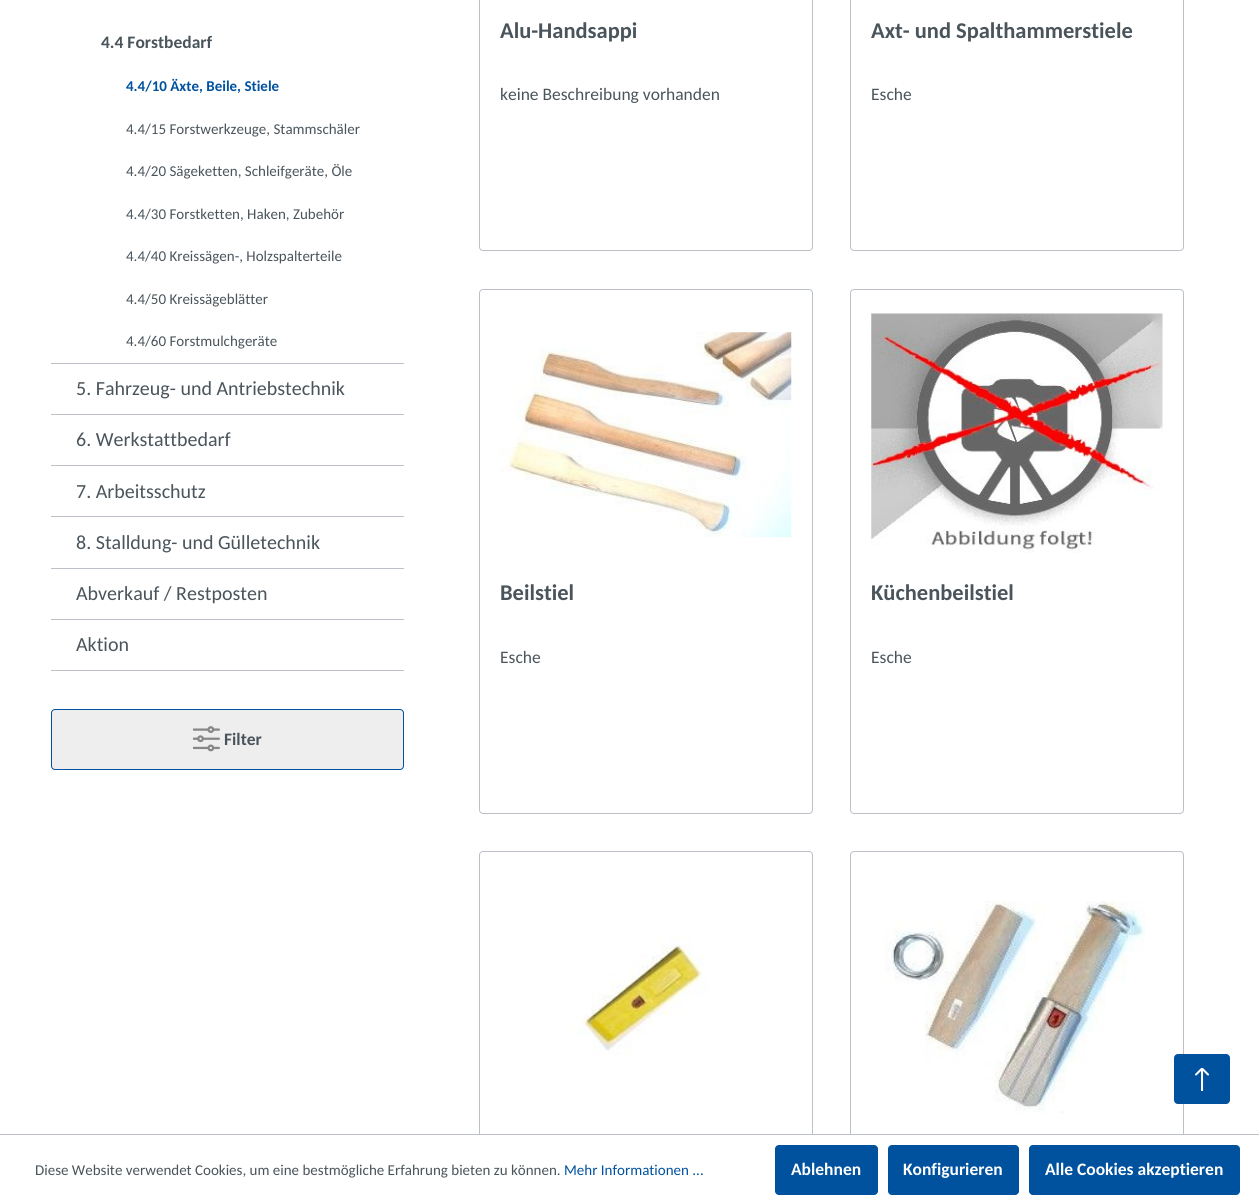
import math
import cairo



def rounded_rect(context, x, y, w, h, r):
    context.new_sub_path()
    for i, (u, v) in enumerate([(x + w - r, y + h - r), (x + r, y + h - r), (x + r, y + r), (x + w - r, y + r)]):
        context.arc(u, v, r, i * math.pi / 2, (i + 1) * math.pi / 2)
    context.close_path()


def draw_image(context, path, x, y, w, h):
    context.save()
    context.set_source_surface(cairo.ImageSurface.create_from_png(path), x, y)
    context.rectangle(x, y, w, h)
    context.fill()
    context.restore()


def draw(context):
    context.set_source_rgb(1, 1, 1)
    context.paint()
    context.set_source_rgb(188 / 255, 193 / 255, 199 / 255)
    context.rectangle(51, 363, 353, 1)
    context.fill()
    context.rectangle(51, 414, 353, 1)
    context.fill()
    context.rectangle(51, 465, 353, 1)
    context.fill()
    context.rectangle(51, 516, 353, 1)
    context.fill()
    context.rectangle(51, 568, 353, 1)
    context.fill()
    context.rectangle(51, 619, 353, 1)
    context.fill()
    context.rectangle(51, 670, 353, 1)
    context.fill()
    context.set_source_rgb(238 / 255, 238 / 255, 238 / 255)
    rounded_rect(context, 51.5, 709.5, 352, 60, 3.5)
    context.fill_preserve()
    context.set_source_rgb(0, 81 / 255, 158 / 255)
    context.set_line_width(1)
    context.stroke()
    draw_image(context, "images/1.png", 193, 726, 27, 26)
    rounded_rect(context, 479.5, -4.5, 333, 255, 3.5)
    context.set_source_rgb(188 / 255, 193 / 255, 199 / 255)
    context.stroke()
    rounded_rect(context, 850.5, -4.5, 333, 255, 3.5)
    context.stroke()
    rounded_rect(context, 479.5, 289.5, 333, 524, 3.5)
    context.stroke()
    draw_image(context, "images/2.png", 500, 332, 292, 206)
    rounded_rect(context, 850.5, 289.5, 333, 524, 3.5)
    context.stroke()
    draw_image(context, "images/3.png", 871, 313, 292, 240)
    rounded_rect(context, 479.5, 851.5, 333, 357, 3.5)
    context.stroke()
    draw_image(context, "images/4.png", 572, 935, 137, 120)
    rounded_rect(context, 850.5, 851.5, 333, 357, 3.5)
    context.stroke()
    draw_image(context, "images/5.png", 885, 901, 260, 213)
    context.set_source_rgb(0, 81 / 255, 158 / 255)
    rounded_rect(context, 1174.5, 1054.5, 55, 49, 3.5)
    context.fill_preserve()
    context.stroke()
    draw_image(context, "images/6.png", 1195, 1068, 14, 23)
    context.set_source_rgb(1, 1, 1)
    context.rectangle(479, 1135, 705, 69)
    context.fill()
    context.set_source_rgb(188 / 255, 193 / 255, 199 / 255)
    context.rectangle(0, 1134, 1259, 1)
    context.fill()
    context.set_source_rgb(0, 81 / 255, 158 / 255)
    rounded_rect(context, 775.5, 1145.5, 102, 49, 3.5)
    context.fill_preserve()
    context.stroke()
    rounded_rect(context, 888.5, 1145.5, 130, 49, 3.5)
    context.fill_preserve()
    context.stroke()
    rounded_rect(context, 1029.5, 1145.5, 210, 49, 3.5)
    context.fill_preserve()
    context.stroke()
    context.select_font_face("Carlito", cairo.FontSlant.NORMAL, cairo.FontWeight.BOLD)
    context.set_font_size(17.5)
    context.set_source_rgb(74 / 255, 84 / 255, 91 / 255)
    context.move_to(101, 48)
    context.show_text("4.4 Forstbedarf")
    context.set_font_size(15)
    context.set_source_rgb(0, 81 / 255, 158 / 255)
    context.move_to(126, 91)
    context.show_text("4.4/10 Äxte, Beile, Stiele")
    context.select_font_face("Carlito")
    context.set_source_rgb(74 / 255, 84 / 255, 91 / 255)
    context.move_to(126, 134)
    context.show_text("4.4/15 Forstwerkzeuge, Stammschäler")
    context.move_to(126, 176)
    context.show_text("4.4/20 Sägeketten, Schleifgeräte, Öle")
    context.move_to(126, 219)
    context.show_text("4.4/30 Forstketten, Haken, Zubehör")
    context.move_to(126, 261)
    context.show_text("4.4/40 Kreissägen-, Holzspalterteile")
    context.move_to(126, 304)
    context.show_text("4.4/50 Kreissägeblätter")
    context.move_to(126, 346)
    context.show_text("4.4/60 Forstmulchgeräte")
    context.set_font_size(20)
    context.move_to(76, 395)
    context.show_text("5. Fahrzeug- und Antriebstechnik")
    context.move_to(76, 446)
    context.show_text("6. Werkstattbedarf")
    context.move_to(76, 498)
    context.show_text("7. Arbeitsschutz")
    context.move_to(76, 549)
    context.show_text("8. Stalldung- und Gülletechnik")
    context.move_to(76, 600)
    context.show_text("Abverkauf / Restposten")
    context.move_to(76, 651)
    context.show_text("Aktion")
    context.select_font_face("Carlito", cairo.FontSlant.NORMAL, cairo.FontWeight.BOLD)
    context.set_font_size(17.5)
    context.move_to(224, 745)
    context.show_text("Filter")
    context.set_font_size(22.5)
    context.move_to(500, 38)
    context.show_text("Alu-Handsappi")
    context.select_font_face("Carlito")
    context.set_font_size(17.5)
    context.move_to(500, 100)
    context.show_text("keine Beschreibung vorhanden")
    context.select_font_face("Carlito", cairo.FontSlant.NORMAL, cairo.FontWeight.BOLD)
    context.set_font_size(22.5)
    context.move_to(871, 38)
    context.show_text("Axt- und Spalthammerstiele")
    context.select_font_face("Carlito")
    context.set_font_size(17.5)
    context.move_to(871, 100)
    context.show_text("Esche")
    context.select_font_face("Carlito", cairo.FontSlant.NORMAL, cairo.FontWeight.BOLD)
    context.set_font_size(22.5)
    context.move_to(500, 600)
    context.show_text("Beilstiel")
    context.select_font_face("Carlito")
    context.set_font_size(17.5)
    context.move_to(500, 663)
    context.show_text("Esche")
    context.select_font_face("Carlito", cairo.FontSlant.NORMAL, cairo.FontWeight.BOLD)
    context.set_font_size(22.5)
    context.move_to(871, 600)
    context.show_text("Küchenbeilstiel")
    context.select_font_face("Carlito")
    context.set_font_size(17.5)
    context.move_to(871, 663)
    context.show_text("Esche")
    context.set_font_size(15)
    context.move_to(35, 1175)
    context.show_text("Diese Website verwendet Cookies, um eine bestmögliche Erfahrung bieten zu können.")
    context.set_source_rgb(0, 81 / 255, 158 / 255)
    context.move_to(564, 1175)
    context.show_text("Mehr Informationen ...")
    context.select_font_face("Carlito", cairo.FontSlant.NORMAL, cairo.FontWeight.BOLD)
    context.set_font_size(17.5)
    context.set_source_rgb(1, 1, 1)
    context.move_to(791, 1175)
    context.show_text("Ablehnen")
    context.move_to(903, 1175)
    context.show_text("Konfigurieren")
    context.move_to(1045, 1175)
    context.show_text("Alle Cookies akzeptieren")


surface = cairo.ImageSurface(cairo.Format.RGB24, 1259, 1204)
context = cairo.Context(surface)
options = cairo.FontOptions()
options.set_hint_metrics(cairo.HintMetrics.OFF)
options.set_hint_style(cairo.HintStyle.NONE)
context.set_font_options(options)
context.set_miter_limit(4)
draw(context)
surface.write_to_png("out.png")
